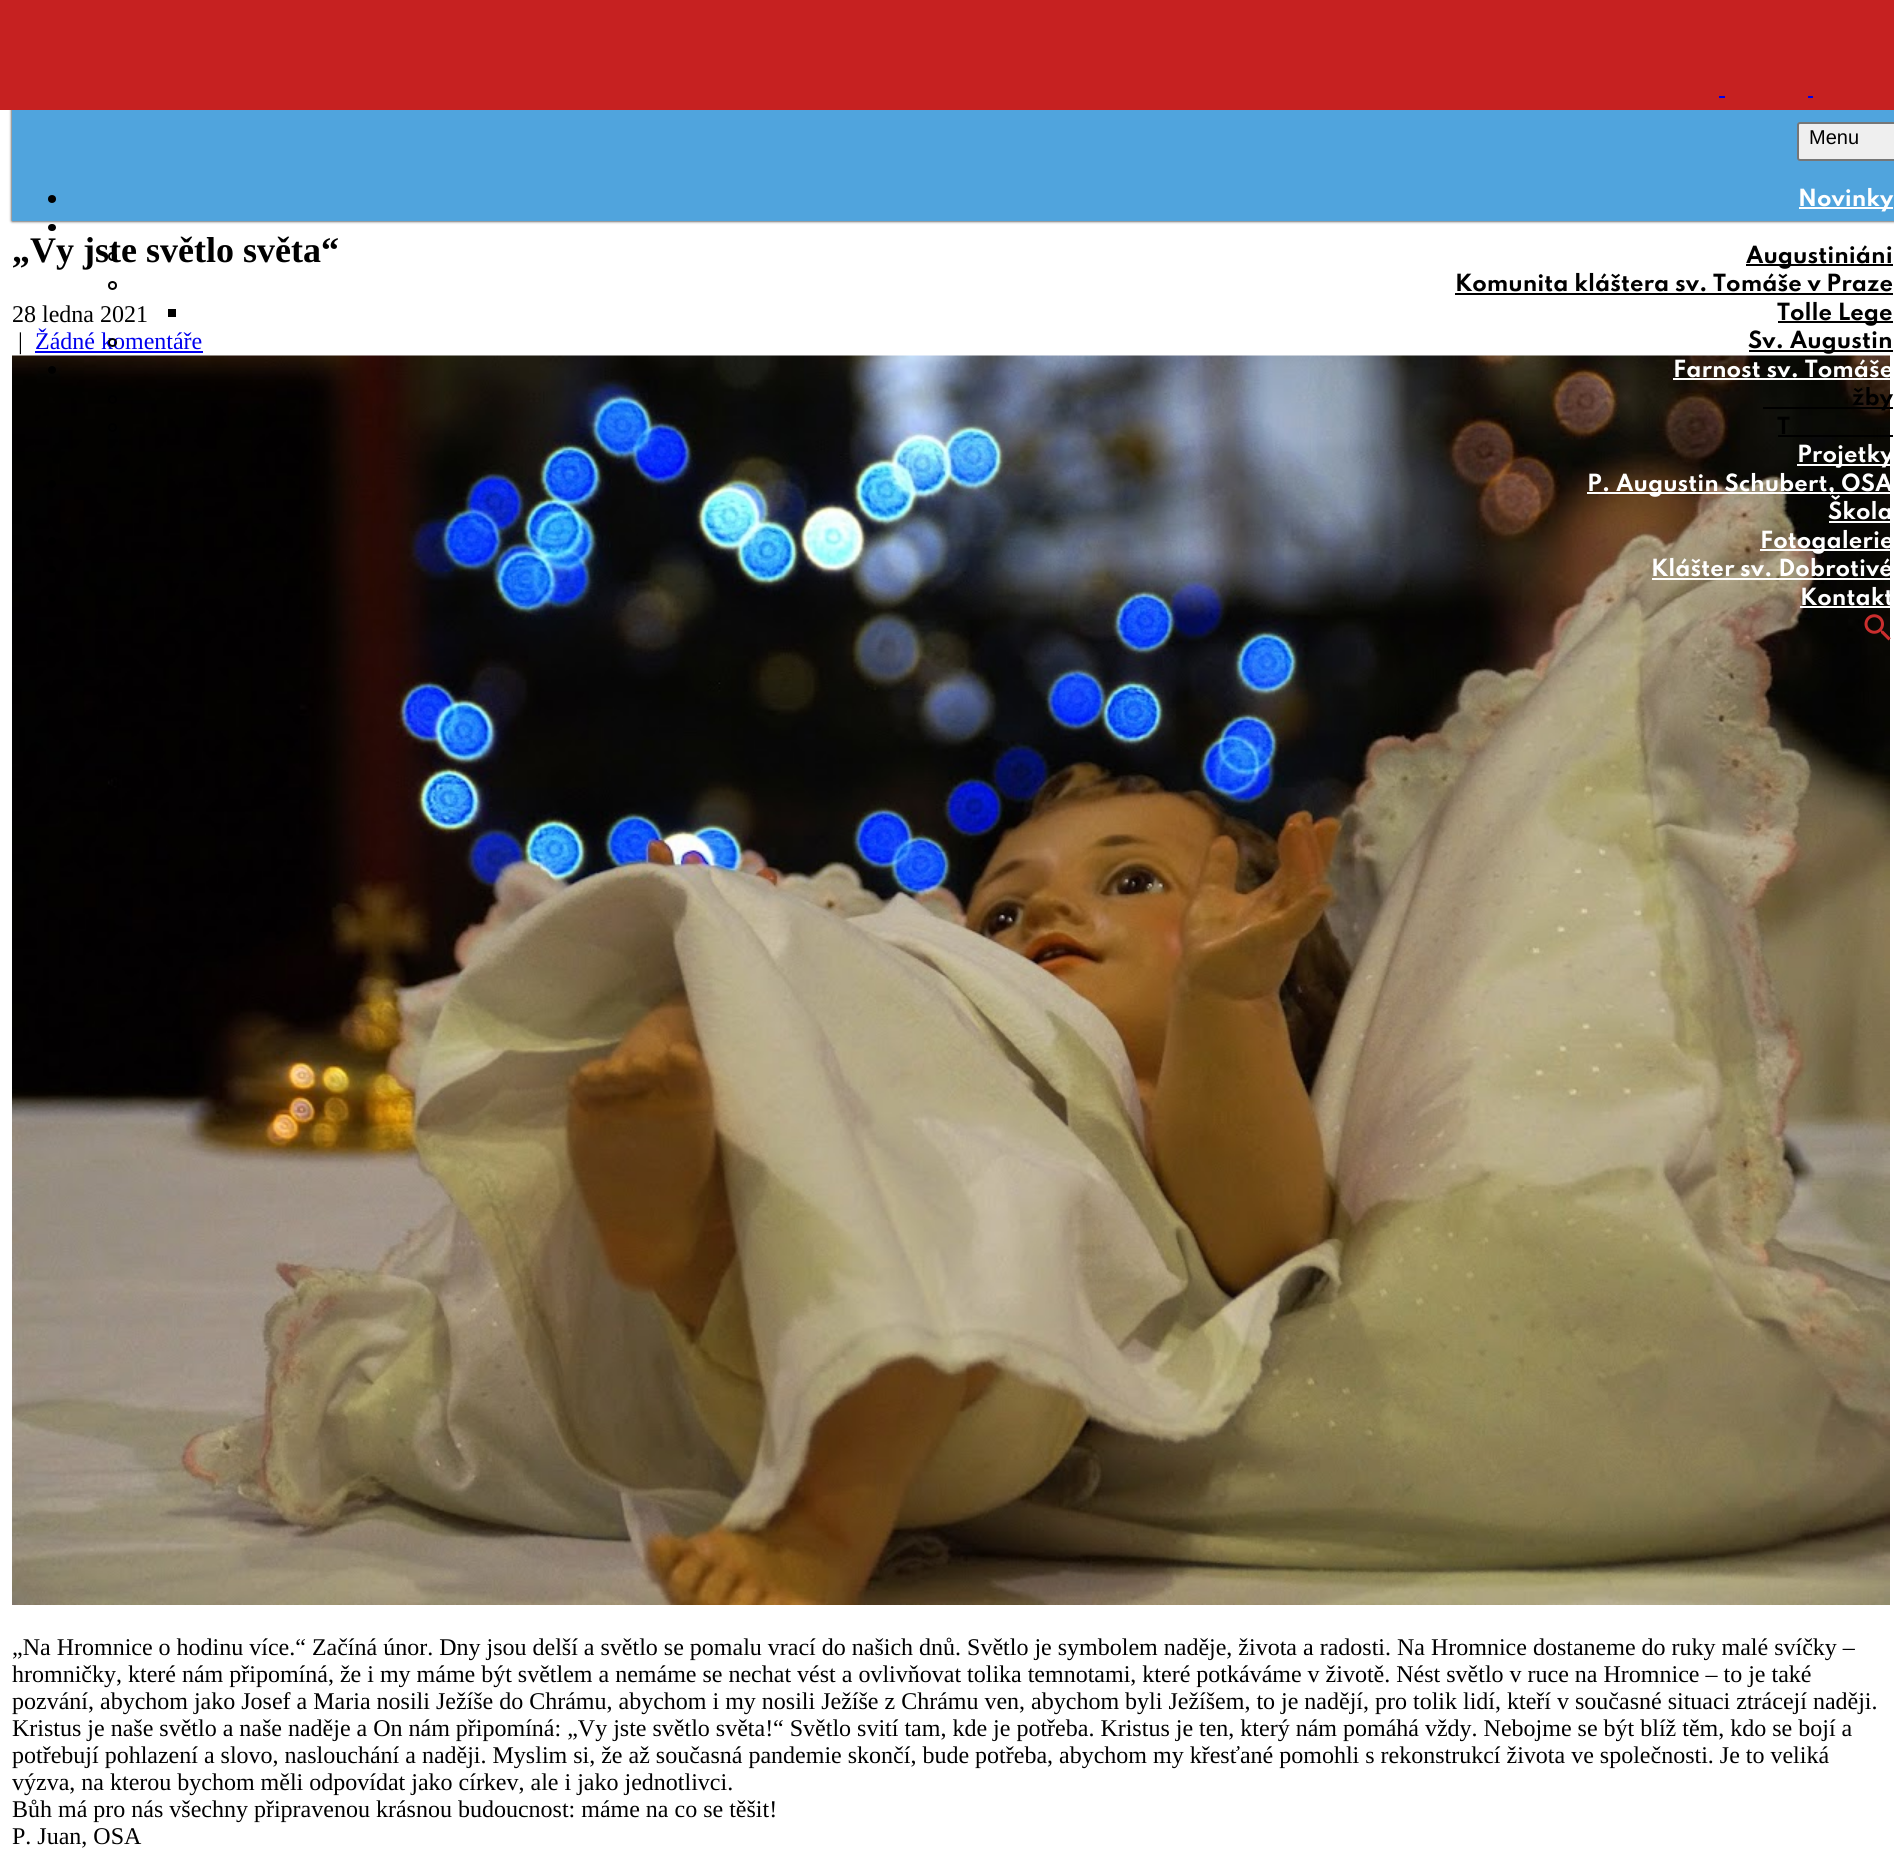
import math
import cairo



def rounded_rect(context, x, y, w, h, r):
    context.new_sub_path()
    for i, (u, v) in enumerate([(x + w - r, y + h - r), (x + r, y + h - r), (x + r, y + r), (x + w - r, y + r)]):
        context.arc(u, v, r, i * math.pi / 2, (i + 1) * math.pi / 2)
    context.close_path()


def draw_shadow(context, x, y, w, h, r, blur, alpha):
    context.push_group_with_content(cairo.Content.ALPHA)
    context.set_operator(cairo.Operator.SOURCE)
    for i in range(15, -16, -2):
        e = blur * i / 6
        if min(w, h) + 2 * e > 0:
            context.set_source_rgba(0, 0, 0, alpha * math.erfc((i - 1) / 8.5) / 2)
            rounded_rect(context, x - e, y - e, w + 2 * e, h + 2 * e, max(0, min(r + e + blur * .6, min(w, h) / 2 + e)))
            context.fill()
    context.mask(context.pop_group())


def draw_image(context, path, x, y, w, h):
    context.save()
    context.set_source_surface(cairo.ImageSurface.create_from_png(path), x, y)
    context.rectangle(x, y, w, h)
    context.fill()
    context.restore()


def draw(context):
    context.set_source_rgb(1, 1, 1)
    context.paint()
    context.set_source_rgb(0, 0, 0)
    draw_shadow(context, 12, 71, 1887, 150, 0, 1.5, 1)
    context.set_source_rgb(198 / 255, 33 / 255, 33 / 255)
    context.rectangle(0, 0, 1894, 110)
    context.fill()
    context.set_source_rgb(0, 0, 238 / 255)
    context.rectangle(1719, 96, 6, 2)
    context.fill()
    context.rectangle(1808, 96, 5, 2)
    context.fill()
    context.set_source_rgb(80 / 255, 164 / 255, 221 / 255)
    context.rectangle(12, 110, 1882, 111)
    context.fill()
    context.set_source_rgb(239 / 255, 239 / 255, 239 / 255)
    rounded_rect(context, 1798, 123, 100, 37, 2)
    context.fill_preserve()
    context.set_source_rgb(118 / 255, 118 / 255, 118 / 255)
    context.stroke()
    context.set_source_rgb(0, 0, 0)
    context.arc(52, 199, 4, 0, 2 * math.pi)
    context.fill()
    context.set_source_rgb(1, 1, 1)
    context.rectangle(1799, 207, 94, 2)
    context.fill()
    context.set_source_rgb(0, 0, 0)
    rounded_rect(context, 48, 224, 8, 7, 3.5)
    context.fill()
    context.arc(112.5, 256.5, 3.5, 0, 2 * math.pi)
    context.stroke()
    context.rectangle(1746, 264, 147, 2)
    context.fill()
    context.arc(112.5, 285.5, 3.5, 0, 2 * math.pi)
    context.stroke()
    context.rectangle(1455, 293, 438, 2)
    context.fill()
    context.rectangle(168, 309, 8, 8)
    context.fill()
    context.rectangle(1778, 321, 115, 2)
    context.fill()
    context.rectangle(1749, 350, 144, 2)
    context.fill()
    draw_image(context, "images/2.png", 12, 355, 1878, 1250)
    context.arc(52, 370, 4, 0, 2 * math.pi)
    context.fill()
    context.set_source_rgb(1, 1, 1)
    context.rectangle(1673, 378, 220, 2)
    context.fill()
    context.arc(112.5, 399.5, 3.5, 0, 2 * math.pi)
    context.set_source_rgb(0, 0, 0)
    context.stroke()
    context.rectangle(1763, 407, 130, 2)
    context.fill()
    context.arc(112.5, 427.5, 3.5, 0, 2 * math.pi)
    context.stroke()
    context.rectangle(1778, 435, 115, 2)
    context.fill()
    context.set_source_rgb(1, 1, 1)
    context.rectangle(1797, 464, 96, 2)
    context.fill()
    context.set_source_rgb(0, 0, 0)
    context.arc(52, 484, 4, 0, 2 * math.pi)
    context.fill()
    context.set_source_rgb(1, 1, 1)
    context.rectangle(1587, 492, 306, 2)
    context.fill()
    context.rectangle(1829, 521, 64, 2)
    context.fill()
    context.set_source_rgb(0, 0, 0)
    context.arc(52, 541, 4, 0, 2 * math.pi)
    context.fill()
    context.set_source_rgb(1, 1, 1)
    context.rectangle(1760, 549, 133, 2)
    context.fill()
    context.set_source_rgb(0, 0, 0)
    rounded_rect(context, 48, 566, 8, 7, 3.5)
    context.fill()
    context.set_source_rgb(1, 1, 1)
    context.rectangle(1652, 578, 241, 2)
    context.fill()
    context.set_source_rgb(0, 0, 0)
    context.arc(52, 598, 4, 0, 2 * math.pi)
    context.fill()
    context.set_source_rgb(1, 1, 1)
    context.rectangle(1800, 606, 93, 2)
    context.fill()
    context.set_source_rgb(0, 0, 0)
    rounded_rect(context, 48, 632, 8, 7, 3.5)
    context.fill()
    draw_image(context, "images/1.png", 1864, 614, 27, 27)
    context.set_source_rgb(0, 0, 238 / 255)
    context.rectangle(35, 351, 168, 2)
    context.fill()
    context.select_font_face("Liberation Sans")
    context.set_font_size(20)
    context.set_source_rgb(0, 0, 0)
    context.move_to(1809, 144)
    context.show_text("Menu")
    context.select_font_face("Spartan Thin", cairo.FontSlant.NORMAL, cairo.FontWeight.BOLD)
    context.set_font_size(21)
    context.set_source_rgb(1, 1, 1)
    context.move_to(1798, 206)
    context.show_text("Novinky")
    context.set_source_rgb(0, 0, 0)
    context.move_to(1746, 263)
    context.show_text("Augustiniáni")
    context.move_to(1455, 291)
    context.show_text("Komunita kláštera sv. Tomáše v Praze")
    context.move_to(1777, 320)
    context.show_text("Tolle Lege")
    context.move_to(1748, 348)
    context.show_text("Sv. Augustin")
    context.set_source_rgb(1, 1, 1)
    context.move_to(1673, 377)
    context.show_text("Farnost sv. Tomáše")
    context.set_source_rgb(0, 0, 0)
    context.move_to(1852, 405)
    context.show_text("žby")
    context.move_to(1777, 434)
    context.show_text("T")
    context.set_source_rgb(1, 1, 1)
    context.move_to(1797, 462)
    context.show_text("Projetky")
    context.move_to(1587, 491)
    context.show_text("P. Augustin Schubert, OSA")
    context.move_to(1828, 519)
    context.show_text("Škola")
    context.move_to(1760, 548)
    context.show_text("Fotogalerie")
    context.move_to(1651, 576)
    context.show_text("Klášter sv. Dobrotivé")
    context.move_to(1800, 605)
    context.show_text("Kontakt")
    context.select_font_face("Liberation Serif", cairo.FontSlant.NORMAL, cairo.FontWeight.BOLD)
    context.set_font_size(36)
    context.set_source_rgb(0, 0, 0)
    context.move_to(12, 262)
    context.show_text("„Vy jste světlo světa“")
    context.select_font_face("Liberation Serif")
    context.set_font_size(24)
    context.move_to(12, 322)
    context.show_text("28 ledna 2021")
    context.move_to(18, 349)
    context.show_text("|")
    context.set_source_rgb(0, 0, 238 / 255)
    context.move_to(35, 349)
    context.show_text("Žádné komentáře")
    context.new_path()
    context.arc(112.5, 342.5, 3.5, 0, 2 * math.pi)
    context.set_source_rgb(0, 0, 0)
    context.stroke()
    context.move_to(12, 1655)
    context.show_text("„Na Hromnice o hodinu více.“ Začíná únor. Dny jsou delší a světlo se pomalu vrací do našich dnů. Světlo je symbolem naděje, života a radosti. Na Hromnice dostaneme do ruky malé svíčky –")
    context.move_to(12, 1682)
    context.show_text("hromničky, které nám připomíná, že i my máme být světlem a nemáme se nechat vést a ovlivňovat tolika temnotami, které potkáváme v životě. Nést světlo v ruce na Hromnice – to je také")
    context.move_to(12, 1709)
    context.show_text("pozvání, abychom jako Josef a Maria nosili Ježíše do Chrámu, abychom i my nosili Ježíše z Chrámu ven, abychom byli Ježíšem, to je nadějí, pro tolik lidí, kteří v současné situaci ztrácejí naději.")
    context.move_to(12, 1736)
    context.show_text("Kristus je naše světlo a naše naděje a On nám připomíná: „Vy jste světlo světa!“ Světlo svití tam, kde je potřeba. Kristus je ten, který nám pomáhá vždy. Nebojme se být blíž těm, kdo se bojí a")
    context.move_to(12, 1763)
    context.show_text("potřebují pohlazení a slovo, naslouchání a naději. Myslim si, že až současná pandemie skončí, bude potřeba, abychom my křesťané pomohli s rekonstrukcí života ve společnosti. Je to veliká")
    context.move_to(12, 1790)
    context.show_text("výzva, na kterou bychom měli odpovídat jako církev, ale i jako jednotlivci.")
    context.move_to(12, 1817)
    context.show_text("Bůh má pro nás všechny připravenou krásnou budoucnost: máme na co se těšit!")
    context.move_to(12, 1844)
    context.show_text("P. Juan, OSA")


surface = cairo.ImageSurface(cairo.Format.RGB24, 1894, 1856)
context = cairo.Context(surface)
options = cairo.FontOptions()
options.set_hint_metrics(cairo.HintMetrics.OFF)
options.set_hint_style(cairo.HintStyle.NONE)
context.set_font_options(options)
context.set_miter_limit(4)
draw(context)
surface.write_to_png("out.png")
